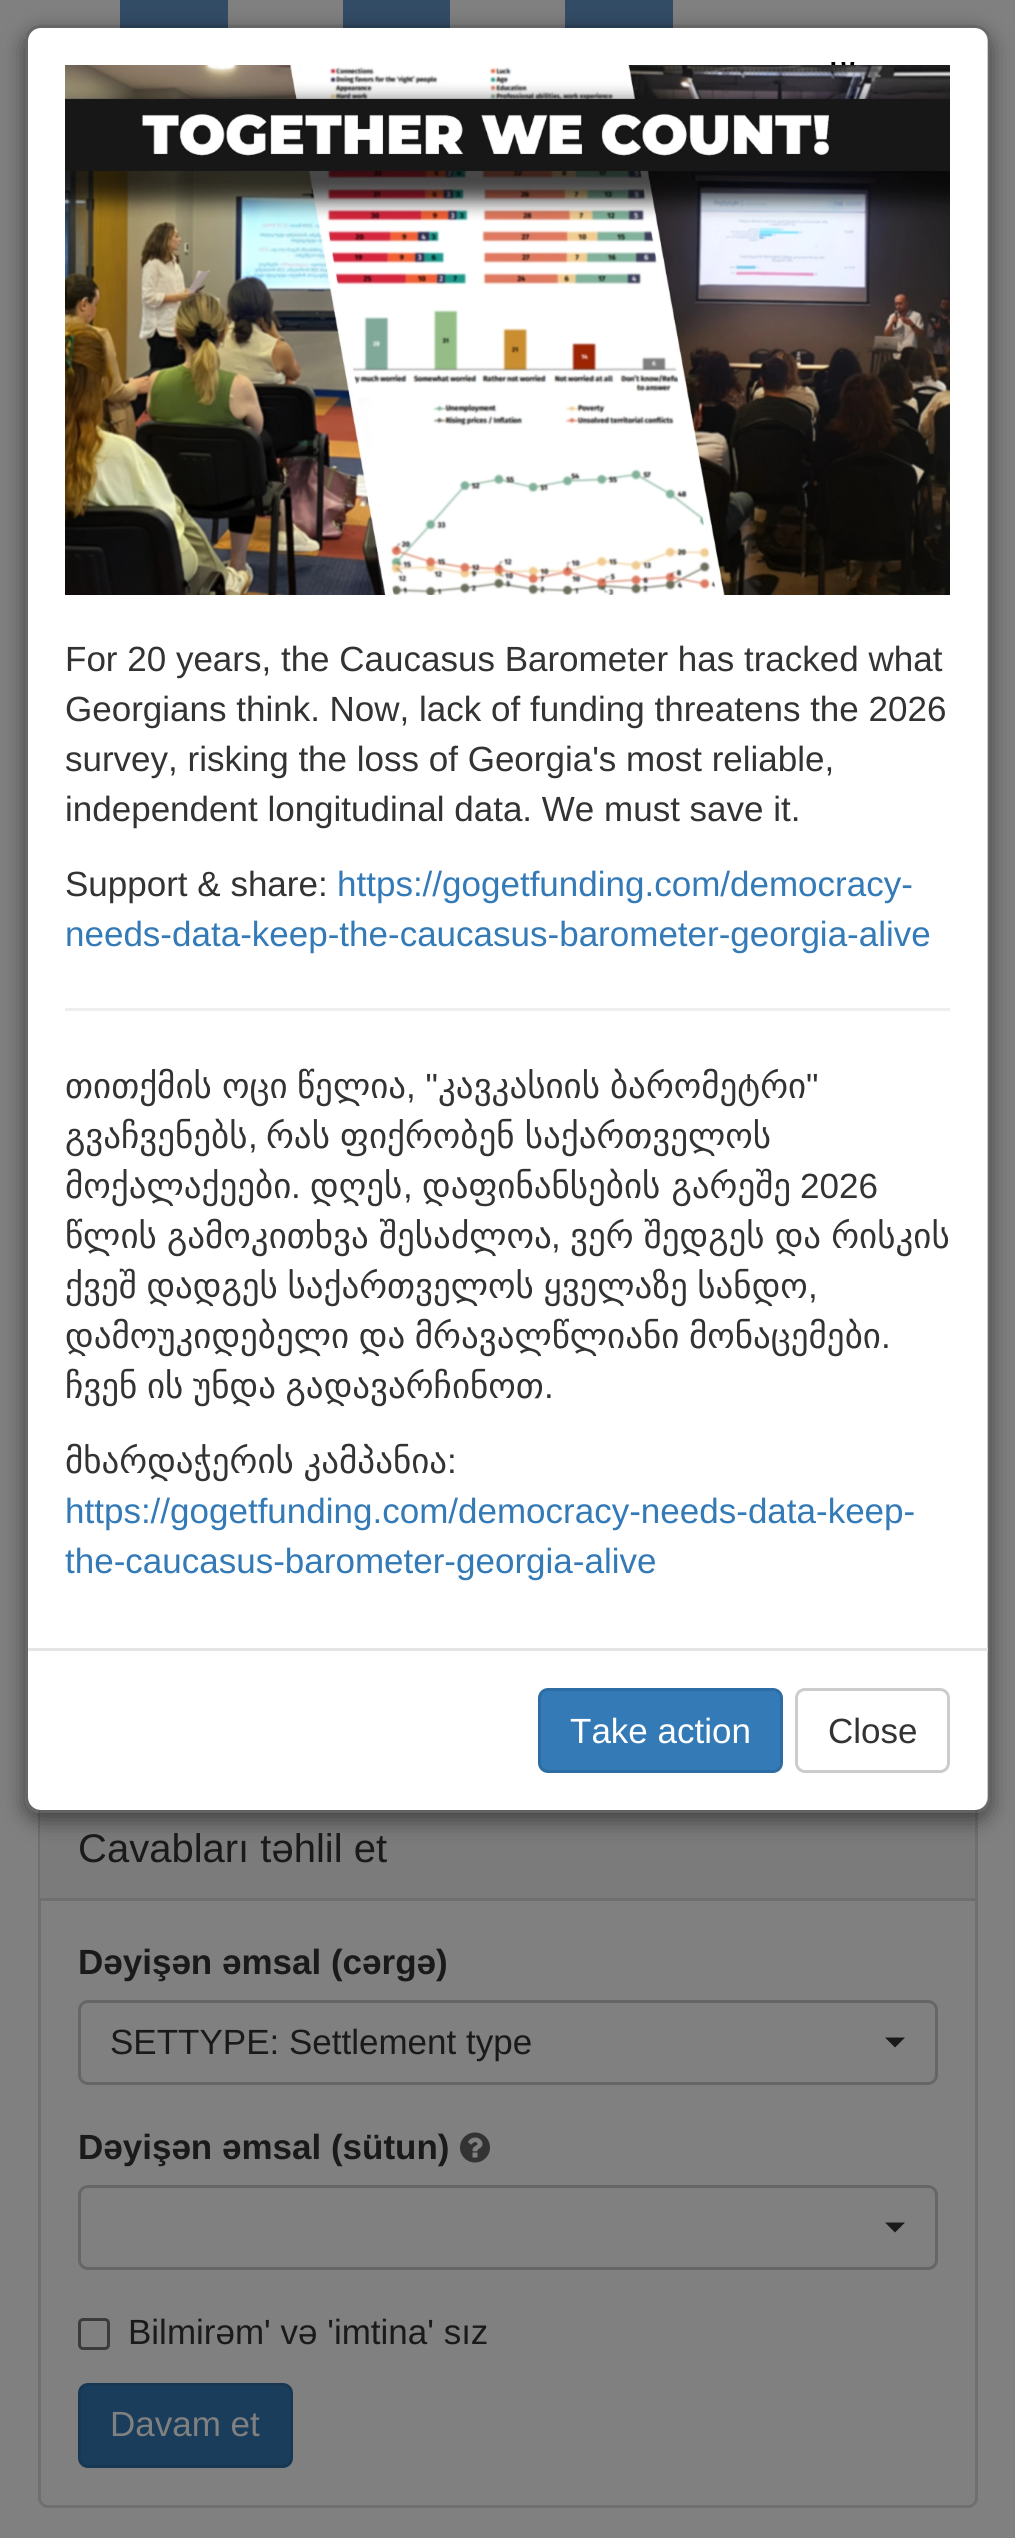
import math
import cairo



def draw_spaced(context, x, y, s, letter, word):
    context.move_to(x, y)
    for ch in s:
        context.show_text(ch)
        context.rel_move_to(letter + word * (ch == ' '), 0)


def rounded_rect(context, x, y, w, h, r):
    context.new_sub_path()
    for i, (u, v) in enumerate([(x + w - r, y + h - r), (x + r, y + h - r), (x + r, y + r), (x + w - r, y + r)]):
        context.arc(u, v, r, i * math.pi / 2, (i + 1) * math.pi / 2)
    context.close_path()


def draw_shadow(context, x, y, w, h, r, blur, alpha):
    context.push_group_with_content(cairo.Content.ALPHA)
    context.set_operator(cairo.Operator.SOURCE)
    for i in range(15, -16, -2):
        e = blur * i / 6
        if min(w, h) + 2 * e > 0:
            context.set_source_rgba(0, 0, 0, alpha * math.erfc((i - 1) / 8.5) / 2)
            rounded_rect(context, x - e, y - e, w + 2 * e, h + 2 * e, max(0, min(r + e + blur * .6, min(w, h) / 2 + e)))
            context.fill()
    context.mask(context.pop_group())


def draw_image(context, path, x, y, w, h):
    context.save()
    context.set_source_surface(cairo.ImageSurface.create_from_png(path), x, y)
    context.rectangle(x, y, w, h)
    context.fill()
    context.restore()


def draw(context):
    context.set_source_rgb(128 / 255, 128 / 255, 128 / 255)
    context.paint()
    draw_image(context, "images/2.png", 60, 0, 895, 28)
    rounded_rect(context, 39.5, 1801.5, 937, 705, 8.5)
    context.set_source_rgb(111 / 255, 111 / 255, 111 / 255)
    context.set_line_width(3)
    context.stroke()
    context.set_source_rgb(123 / 255, 123 / 255, 123 / 255)
    context.new_path()
    context.move_to(48, 1803)
    context.line_to(967, 1803)
    context.curve_to(971.5, 1803, 975, 1806.5, 975, 1811)
    context.line_to(975, 1900)
    context.line_to(40, 1900)
    context.line_to(40, 1811)
    context.curve_to(40, 1806.5, 43.5, 1803, 48, 1803)
    context.close_path()
    context.fill()
    context.save()
    context.set_fill_rule(cairo.FillRule.EVEN_ODD)
    context.new_path()
    context.move_to(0, 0)
    context.line_to(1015, 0)
    context.line_to(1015, 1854)
    context.line_to(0, 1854)
    context.close_path()
    context.move_to(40, 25)
    context.line_to(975, 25)
    context.curve_to(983.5, 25, 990, 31.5, 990, 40)
    context.line_to(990, 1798)
    context.curve_to(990, 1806.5, 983.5, 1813, 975, 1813)
    context.line_to(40, 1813)
    context.curve_to(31.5, 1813, 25, 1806.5, 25, 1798)
    context.line_to(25, 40)
    context.curve_to(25, 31.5, 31.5, 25, 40, 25)
    context.close_path()
    context.clip()
    context.set_source_rgb(0, 0, 0)
    draw_shadow(context, 25, 33, 965, 1787, 15, 11, 0.5)
    context.restore()
    context.set_source_rgb(1, 1, 1)
    rounded_rect(context, 28, 28, 960, 1782, 13)
    context.fill()
    rounded_rect(context, 26.5, 26.5, 962, 1785, 13.5)
    context.set_source_rgba(0, 0, 0, 0.2)
    context.stroke()
    draw_image(context, "images/1.png", 65, 62, 885, 533)
    context.set_source_rgb(238 / 255, 238 / 255, 238 / 255)
    context.rectangle(65, 1008, 885, 3)
    context.fill()
    context.set_source_rgb(229 / 255, 229 / 255, 229 / 255)
    context.rectangle(28, 1648, 960, 3)
    context.fill()
    context.set_source_rgb(51 / 255, 122 / 255, 183 / 255)
    rounded_rect(context, 539.5, 1689.5, 242, 82, 8.5)
    context.fill_preserve()
    context.set_source_rgb(46 / 255, 109 / 255, 164 / 255)
    context.stroke()
    rounded_rect(context, 796.5, 1689.5, 152, 82, 8.5)
    context.set_source_rgb(204 / 255, 204 / 255, 204 / 255)
    context.stroke()
    context.set_source_rgb(111 / 255, 111 / 255, 111 / 255)
    context.rectangle(40, 1898, 935, 3)
    context.fill()
    rounded_rect(context, 79.5, 2001.5, 857, 82, 8.5)
    context.set_source_rgb(102 / 255, 102 / 255, 102 / 255)
    context.stroke()
    context.set_source_rgb(26 / 255, 26 / 255, 26 / 255)
    context.new_path()
    context.move_to(885, 2037.5)
    context.line_to(905, 2037.5)
    context.line_to(895, 2047.5)
    context.close_path()
    context.fill()
    draw_image(context, "images/3.png", 460, 2132, 30, 31)
    rounded_rect(context, 79.5, 2186.5, 857, 82, 8.5)
    context.set_source_rgb(102 / 255, 102 / 255, 102 / 255)
    context.stroke()
    context.set_source_rgb(26 / 255, 26 / 255, 26 / 255)
    context.new_path()
    context.move_to(885, 2222.5)
    context.line_to(905, 2222.5)
    context.line_to(895, 2232.5)
    context.close_path()
    context.fill()
    rounded_rect(context, 79.5, 2319.5, 29, 29, 3.5)
    context.set_source_rgb(59 / 255, 59 / 255, 59 / 255)
    context.stroke()
    context.set_source_rgb(26 / 255, 61 / 255, 92 / 255)
    rounded_rect(context, 79.5, 2384.5, 212, 82, 8.5)
    context.fill_preserve()
    context.set_source_rgb(23 / 255, 55 / 255, 82 / 255)
    context.stroke()
    context.select_font_face("Liberation Sans")
    context.set_font_size(35)
    context.set_source_rgb(51 / 255, 51 / 255, 51 / 255)
    context.move_to(65, 671)
    context.show_text("For 20 years, the Caucasus Barometer has tracked what")
    context.move_to(65, 721)
    context.show_text("Georgians think. Now, lack of funding threatens the 2026")
    context.move_to(65, 771)
    context.show_text("survey, risking the loss of Georgia's most reliable,")
    context.move_to(65, 821)
    context.show_text("independent longitudinal data. We must save it.")
    context.move_to(65, 896)
    context.show_text("Support & share:")
    context.set_source_rgb(51 / 255, 122 / 255, 183 / 255)
    context.move_to(337, 896)
    context.show_text("https://gogetfunding.com/democracy-")
    context.move_to(65, 946)
    context.show_text("needs-data-keep-the-caucasus-barometer-georgia-alive")
    context.select_font_face("DejaVu Sans")
    context.set_source_rgb(51 / 255, 51 / 255, 51 / 255)
    context.move_to(65, 1098)
    context.show_text("თითქმის")
    context.move_to(222, 1098)
    context.show_text("ოცი")
    context.move_to(297, 1098)
    context.show_text("წელია")
    context.select_font_face("Liberation Sans")
    context.move_to(406, 1098)
    context.show_text(", \"")
    context.select_font_face("DejaVu Sans")
    context.move_to(438, 1098)
    context.show_text("კავკასიის")
    context.move_to(610, 1098)
    context.show_text("ბარომეტრი")
    context.select_font_face("Liberation Sans")
    context.move_to(806, 1098)
    context.show_text("\"")
    context.select_font_face("DejaVu Sans")
    context.move_to(65, 1148)
    context.show_text("გვაჩვენებს")
    context.select_font_face("Liberation Sans")
    context.move_to(248, 1148)
    context.show_text(",")
    context.select_font_face("DejaVu Sans")
    draw_spaced(context, 266, 1148, "რას ფიქრობენ საქართველოს", 0, -1)
    context.move_to(65, 1198)
    context.show_text("მოქალაქეები")
    context.select_font_face("Liberation Sans")
    context.move_to(291, 1198)
    context.show_text(".")
    context.select_font_face("DejaVu Sans")
    context.move_to(310, 1198)
    context.show_text("დღეს")
    context.select_font_face("Liberation Sans")
    context.move_to(403, 1198)
    context.show_text(",")
    context.select_font_face("DejaVu Sans")
    context.move_to(422, 1198)
    context.show_text("დაფინანსების გარეშე")
    context.select_font_face("Liberation Sans")
    context.move_to(800, 1198)
    context.show_text("2026")
    context.select_font_face("DejaVu Sans")
    draw_spaced(context, 65, 1248, "წლის გამოკითხვა შესაძლოა", 0, -1)
    context.select_font_face("Liberation Sans")
    context.move_to(551, 1248)
    context.show_text(",")
    context.select_font_face("DejaVu Sans")
    draw_spaced(context, 570, 1248, "ვერ შედგეს და რისკის", 0, -1)
    draw_spaced(context, 65, 1298, "ქვეშ დადგეს საქართველოს ყველაზე სანდო", 0, -1.5)
    context.select_font_face("Liberation Sans")
    context.move_to(808, 1298)
    context.show_text(",")
    context.select_font_face("DejaVu Sans")
    draw_spaced(context, 65, 1348, "დამოუკიდებელი და მრავალწლიანი მონაცემები", 0, -1.5)
    context.select_font_face("Liberation Sans")
    context.move_to(881, 1348)
    context.show_text(".")
    context.select_font_face("DejaVu Sans")
    draw_spaced(context, 65, 1398, "ჩვენ ის უნდა გადავარჩინოთ", 0, -1.5)
    context.select_font_face("Liberation Sans")
    context.move_to(544, 1398)
    context.show_text(".")
    context.select_font_face("DejaVu Sans")
    draw_spaced(context, 65, 1473, "მხარდაჭერის კამპანია", 0, -1.5)
    context.select_font_face("Liberation Sans")
    context.move_to(447, 1473)
    context.show_text(":")
    context.set_source_rgb(51 / 255, 122 / 255, 183 / 255)
    context.move_to(65, 1523)
    context.show_text("https://gogetfunding.com/democracy-needs-data-keep-")
    context.move_to(65, 1573)
    context.show_text("the-caucasus-barometer-georgia-alive")
    context.set_source_rgb(1, 1, 1)
    context.move_to(570, 1743)
    context.show_text("Take action")
    context.set_source_rgb(51 / 255, 51 / 255, 51 / 255)
    context.move_to(828, 1743)
    context.show_text("Close")
    context.set_font_size(40)
    context.set_source_rgb(26 / 255, 26 / 255, 26 / 255)
    context.move_to(78, 1862)
    context.show_text("Cavabları təhlil et")
    context.select_font_face("Liberation Sans", cairo.FontSlant.NORMAL, cairo.FontWeight.BOLD)
    context.set_font_size(35)
    context.move_to(78, 1974)
    context.show_text("Dəyişən əmsal (cərgə)")
    context.select_font_face("Liberation Sans")
    context.move_to(110, 2054)
    context.show_text("SETTYPE: Settlement type")
    context.select_font_face("Liberation Sans", cairo.FontSlant.NORMAL, cairo.FontWeight.BOLD)
    context.move_to(78, 2159)
    context.show_text("Dəyişən əmsal (sütun)")
    context.select_font_face("Liberation Sans")
    context.move_to(128, 2344)
    context.show_text("Bilmirəm' və 'imtina' sız")
    context.set_source_rgb(128 / 255, 128 / 255, 128 / 255)
    context.move_to(110, 2436)
    context.show_text("Davam et")


surface = cairo.ImageSurface(cairo.Format.RGB24, 1015, 2538)
context = cairo.Context(surface)
options = cairo.FontOptions()
options.set_hint_metrics(cairo.HintMetrics.OFF)
options.set_hint_style(cairo.HintStyle.NONE)
context.set_font_options(options)
context.set_miter_limit(4)
draw(context)
surface.write_to_png("out.png")
